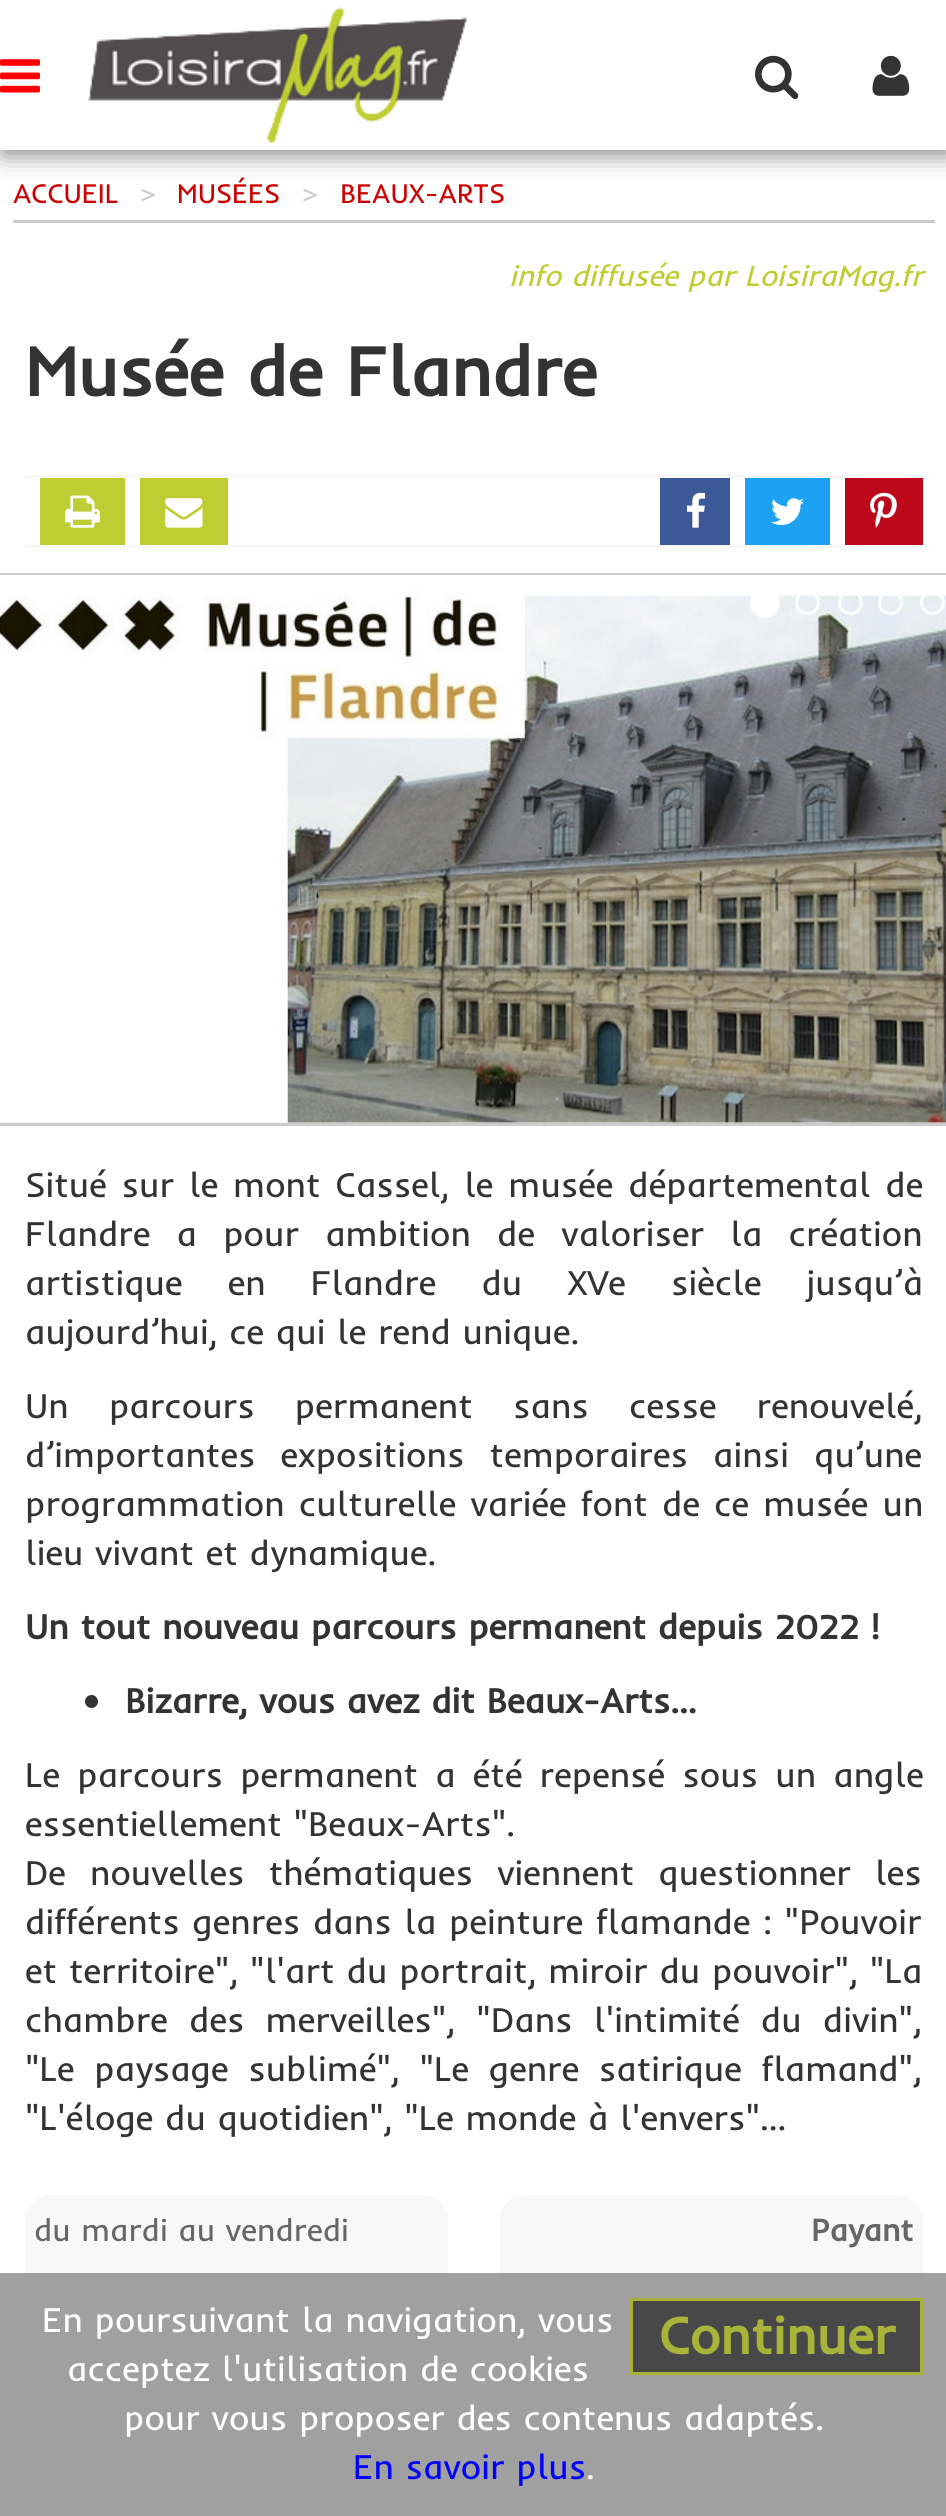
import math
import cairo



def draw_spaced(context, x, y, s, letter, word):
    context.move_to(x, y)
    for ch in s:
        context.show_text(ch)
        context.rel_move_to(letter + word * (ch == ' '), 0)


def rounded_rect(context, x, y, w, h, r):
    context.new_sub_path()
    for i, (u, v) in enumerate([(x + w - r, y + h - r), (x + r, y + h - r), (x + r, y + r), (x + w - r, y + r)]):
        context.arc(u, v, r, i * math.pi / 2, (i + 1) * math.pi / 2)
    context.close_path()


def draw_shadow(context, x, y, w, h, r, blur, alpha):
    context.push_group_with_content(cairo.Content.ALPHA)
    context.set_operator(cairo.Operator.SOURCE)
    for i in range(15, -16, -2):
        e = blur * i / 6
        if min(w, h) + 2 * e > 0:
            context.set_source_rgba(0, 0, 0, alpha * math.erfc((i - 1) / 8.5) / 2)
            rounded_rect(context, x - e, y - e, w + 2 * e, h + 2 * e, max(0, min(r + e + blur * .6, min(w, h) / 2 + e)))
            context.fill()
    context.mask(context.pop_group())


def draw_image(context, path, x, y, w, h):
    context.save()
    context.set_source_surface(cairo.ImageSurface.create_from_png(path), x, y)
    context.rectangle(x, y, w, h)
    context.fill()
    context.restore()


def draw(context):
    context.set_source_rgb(1, 1, 1)
    context.paint()
    context.set_source_rgb(119 / 255, 119 / 255, 119 / 255)
    draw_shadow(context, 3, 3, 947, 150, 0, 12.5, 1)
    context.set_source_rgb(1, 1, 1)
    context.rectangle(0, 0, 946, 150)
    context.fill()
    draw_image(context, "images/1.png", 0, 59, 40, 34)
    draw_image(context, "images/2.png", 88, 7, 379, 136)
    draw_image(context, "images/3.png", 755, 55, 44, 45)
    draw_image(context, "images/4.png", 872, 55, 38, 41)
    context.set_source_rgb(204 / 255, 204 / 255, 204 / 255)
    context.rectangle(13, 220, 922, 3)
    context.fill()
    context.set_source_rgb(248 / 255, 248 / 255, 248 / 255)
    context.rectangle(25, 475, 898, 3)
    context.fill()
    context.rectangle(25, 545, 898, 3)
    context.fill()
    context.set_source_rgb(191 / 255, 205 / 255, 53 / 255)
    context.rectangle(40, 478, 85, 67)
    context.fill()
    draw_image(context, "images/5.png", 65, 495, 35, 33)
    context.rectangle(140, 478, 88, 67)
    context.fill()
    draw_image(context, "images/6.png", 165, 498, 38, 30)
    context.set_source_rgb(59 / 255, 89 / 255, 152 / 255)
    context.rectangle(660, 478, 70, 67)
    context.fill()
    draw_image(context, "images/7.png", 687, 492, 19, 36)
    context.set_source_rgb(29 / 255, 161 / 255, 242 / 255)
    context.rectangle(745, 478, 85, 67)
    context.fill()
    draw_image(context, "images/8.png", 771, 498, 33, 27)
    context.set_source_rgb(189 / 255, 8 / 255, 28 / 255)
    context.rectangle(845, 478, 78, 67)
    context.fill()
    draw_image(context, "images/9.png", 870, 492, 27, 36)
    context.set_source_rgb(238 / 255, 238 / 255, 238 / 255)
    context.rectangle(0, 1121, 946, 2)
    context.fill()
    context.set_source_rgb(204 / 255, 204 / 255, 204 / 255)
    context.rectangle(0, 573, 946, 2)
    context.fill()
    context.rectangle(0, 1123, 946, 3)
    context.fill()
    draw_image(context, "images/10.png", 0, 575, 946, 548)
    context.set_source_rgb(1, 1, 1)
    context.arc(765, 603, 13.5, 0, 2 * math.pi)
    context.fill_preserve()
    context.set_line_width(3)
    context.stroke()
    context.arc(807.5, 602.5, 11, 0, 2 * math.pi)
    context.stroke()
    context.arc(850.5, 602.5, 11, 0, 2 * math.pi)
    context.stroke()
    context.arc(890.5, 602.5, 11, 0, 2 * math.pi)
    context.stroke()
    context.arc(932.5, 602.5, 11, 0, 2 * math.pi)
    context.stroke()
    context.set_source_rgb(51 / 255, 51 / 255, 51 / 255)
    context.arc(91.5, 1701.5, 6.5, 0, 2 * math.pi)
    context.fill()
    context.set_source_rgb(248 / 255, 248 / 255, 248 / 255)
    rounded_rect(context, 25, 2195, 423, 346, 25)
    context.fill()
    rounded_rect(context, 500, 2195, 423, 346, 25)
    context.fill()
    context.set_source_rgba(151 / 255, 151 / 255, 151 / 255, 0.9)
    context.rectangle(0, 2273, 946, 243)
    context.fill()
    context.set_source_rgba(51 / 255, 51 / 255, 51 / 255, 0.8)
    context.rectangle(630, 2298, 293, 77)
    context.fill()
    context.rectangle(631.5, 2299.5, 290, 74)
    context.set_source_rgba(191 / 255, 205 / 255, 53 / 255, 0.8)
    context.stroke()
    context.select_font_face("Inder")
    context.set_font_size(27.5)
    context.set_source_rgb(204 / 255, 0, 0)
    context.move_to(13, 203)
    context.show_text("ACCUEIL")
    context.set_source_rgb(204 / 255, 204 / 255, 204 / 255)
    context.move_to(140, 203)
    context.show_text(">")
    context.set_source_rgb(204 / 255, 0, 0)
    context.move_to(177, 203)
    context.show_text("MUSÉES")
    context.set_source_rgb(204 / 255, 204 / 255, 204 / 255)
    context.move_to(302, 203)
    context.show_text(">")
    context.set_source_rgb(204 / 255, 0, 0)
    context.move_to(340, 203)
    context.show_text("BEAUX-ARTS")
    context.select_font_face("Inder", cairo.FontSlant.ITALIC)
    context.set_font_size(29.75)
    context.set_source_rgb(191 / 255, 205 / 255, 53 / 255)
    context.move_to(509, 286)
    context.show_text("info diffusée par LoisiraMag.fr")
    context.select_font_face("Inder", cairo.FontSlant.NORMAL, cairo.FontWeight.BOLD)
    context.set_font_size(70)
    context.set_source_rgb(51 / 255, 51 / 255, 51 / 255)
    context.move_to(25, 396)
    context.show_text("Musée de Flandre")
    context.select_font_face("Inder")
    context.set_font_size(35)
    draw_spaced(context, 25, 1197, "Situé sur le mont Cassel, le musée départemental de", 0, 3.25)
    draw_spaced(context, 25, 1246, "Flandre a pour ambition de valoriser la création", 0, 14.5)
    draw_spaced(context, 25, 1295, "artistique en Flandre du XVe siècle jusqu’à", 0, 33.5)
    context.move_to(25, 1344)
    context.show_text("aujourd’hui, ce qui le rend unique.")
    draw_spaced(context, 25, 1418, "Un parcours permanent sans cesse renouvelé,", 0, 28.5)
    draw_spaced(context, 25, 1467, "d’importantes expositions temporaires ainsi qu’une", 0, 13.5)
    draw_spaced(context, 25, 1516, "programmation culturelle variée font de ce musée un", 0, 2.5)
    context.move_to(25, 1565)
    context.show_text("lieu vivant et dynamique.")
    context.select_font_face("Inder", cairo.FontSlant.NORMAL, cairo.FontWeight.BOLD)
    context.move_to(25, 1639)
    context.show_text("Un tout nouveau parcours permanent depuis 2022 !")
    context.move_to(125, 1713)
    context.show_text("Bizarre, vous avez dit Beaux-Arts...")
    context.select_font_face("Inder")
    draw_spaced(context, 25, 1787, "Le parcours permanent a été repensé sous un angle", 0, 5.5)
    context.move_to(25, 1836)
    context.show_text("essentiellement \"Beaux-Arts\".")
    draw_spaced(context, 25, 1885, "De nouvelles thématiques viennent questionner les", 0, 12.5)
    draw_spaced(context, 25, 1934, "différents genres dans la peinture flamande : \"Pouvoir", 0, 1)
    draw_spaced(context, 25, 1983, "et territoire\", \"l'art du portrait, miroir du pouvoir\", \"La", 0, 0.25)
    draw_spaced(context, 25, 2032, "chambre des merveilles\", \"Dans l'intimité du divin\",", 0, 9.5)
    draw_spaced(context, 25, 2081, "\"Le paysage sublimé\", \"Le genre satirique flamand\",", 0, 8)
    context.move_to(25, 2130)
    context.show_text("\"L'éloge du quotidien\", \"Le monde à l'envers\"...")
    context.set_font_size(31.5)
    context.set_source_rgb(102 / 255, 102 / 255, 102 / 255)
    context.move_to(34, 2241)
    context.show_text("du mardi au vendredi")
    context.select_font_face("Inder", cairo.FontSlant.NORMAL, cairo.FontWeight.BOLD)
    context.move_to(811, 2241)
    context.show_text("Payant")
    context.select_font_face("Inder")
    context.set_font_size(35)
    context.set_source_rgb(1, 1, 1)
    context.move_to(42, 2332)
    context.show_text("En poursuivant la navigation, vous")
    context.select_font_face("Inder", cairo.FontSlant.NORMAL, cairo.FontWeight.BOLD)
    context.set_font_size(52.5)
    context.set_source_rgb(167 / 255, 179 / 255, 57 / 255)
    context.move_to(659, 2354)
    context.show_text("Continuer")
    context.select_font_face("Inder")
    context.set_font_size(35)
    context.set_source_rgb(1, 1, 1)
    context.move_to(67, 2381)
    context.show_text("acceptez l'utilisation de cookies")
    context.move_to(124, 2430)
    context.show_text("pour vous proposer des contenus adaptés.")
    context.set_source_rgb(0, 0, 1)
    context.move_to(353, 2479)
    context.show_text("En savoir plus")
    context.set_source_rgb(1, 1, 1)
    context.move_to(586, 2479)
    context.show_text(".")


surface = cairo.ImageSurface(cairo.Format.RGB24, 946, 2516)
context = cairo.Context(surface)
options = cairo.FontOptions()
options.set_hint_metrics(cairo.HintMetrics.OFF)
options.set_hint_style(cairo.HintStyle.NONE)
context.set_font_options(options)
context.set_miter_limit(4)
draw(context)
surface.write_to_png("out.png")
